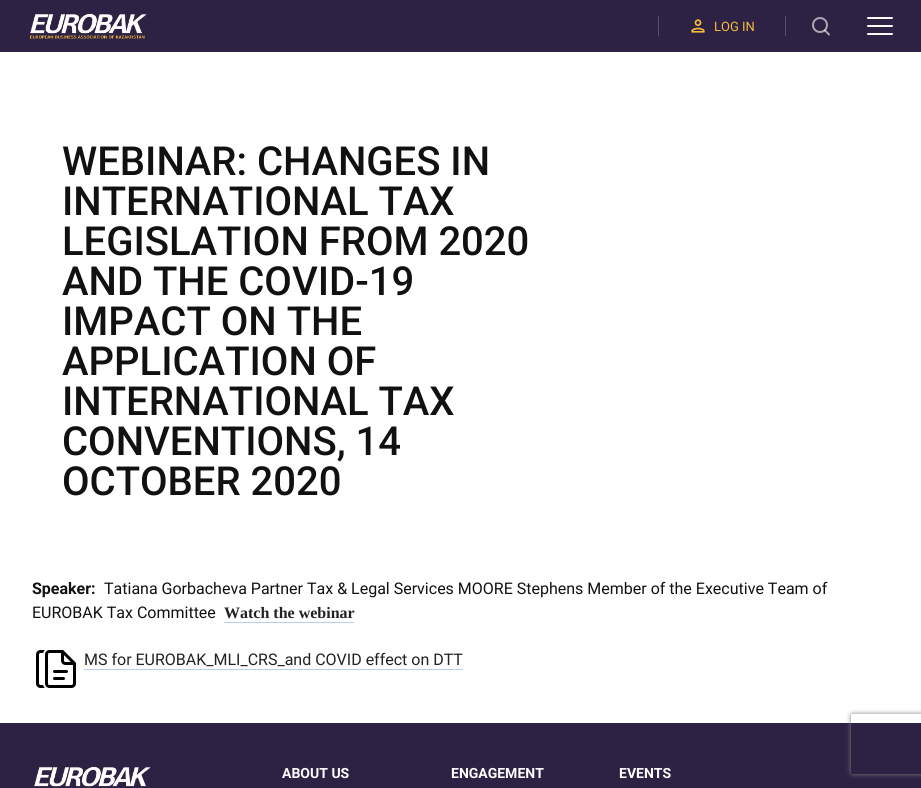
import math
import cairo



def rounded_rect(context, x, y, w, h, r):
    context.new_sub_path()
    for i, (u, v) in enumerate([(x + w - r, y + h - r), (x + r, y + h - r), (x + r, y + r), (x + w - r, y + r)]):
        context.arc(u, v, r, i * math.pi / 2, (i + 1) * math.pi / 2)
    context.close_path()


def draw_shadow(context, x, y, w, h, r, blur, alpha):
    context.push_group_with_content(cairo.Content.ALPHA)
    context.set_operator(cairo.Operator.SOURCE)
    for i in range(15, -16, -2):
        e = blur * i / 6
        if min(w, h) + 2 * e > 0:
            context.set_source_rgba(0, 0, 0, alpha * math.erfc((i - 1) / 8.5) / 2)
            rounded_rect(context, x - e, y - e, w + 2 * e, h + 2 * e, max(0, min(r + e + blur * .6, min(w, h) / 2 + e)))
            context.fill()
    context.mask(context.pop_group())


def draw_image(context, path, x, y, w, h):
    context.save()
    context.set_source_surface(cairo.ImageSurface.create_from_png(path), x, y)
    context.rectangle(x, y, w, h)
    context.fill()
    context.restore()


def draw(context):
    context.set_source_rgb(1, 1, 1)
    context.paint()
    context.set_source_rgb(45 / 255, 34 / 255, 67 / 255)
    context.rectangle(0, 0, 921, 52)
    context.fill()
    draw_image(context, "images/1.png", 30, 13, 117, 26)
    context.set_source_rgb(87 / 255, 78 / 255, 105 / 255)
    context.rectangle(658, 16, 1, 20)
    context.fill()
    draw_image(context, "images/2.png", 691, 19, 14, 14)
    context.rectangle(785, 16, 1, 20)
    context.fill()
    draw_image(context, "images/3.png", 812, 17, 18, 19)
    context.set_source_rgb(1, 1, 1)
    rounded_rect(context, 867, 17, 26, 2, 1)
    context.fill()
    rounded_rect(context, 867, 25, 26, 2, 1)
    context.fill()
    rounded_rect(context, 867, 33, 26, 2, 1)
    context.fill()
    context.set_source_rgb(182 / 255, 206 / 255, 240 / 255)
    context.rectangle(224, 622, 130, 1)
    context.fill()
    draw_image(context, "images/4.png", 36, 650, 40, 38)
    context.rectangle(84, 669, 379, 1)
    context.fill()
    context.set_source_rgb(45 / 255, 34 / 255, 67 / 255)
    context.rectangle(0, 723, 921, 65)
    context.fill()
    draw_image(context, "images/5.png", 34, 766, 117, 21)
    context.save()
    context.set_fill_rule(cairo.FillRule.EVEN_ODD)
    context.new_path()
    context.move_to(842, 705)
    context.line_to(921, 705)
    context.line_to(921, 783)
    context.line_to(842, 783)
    context.close_path()
    context.move_to(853, 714)
    context.line_to(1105, 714)
    context.curve_to(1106, 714, 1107, 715, 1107, 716)
    context.line_to(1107, 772)
    context.curve_to(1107, 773, 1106, 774, 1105, 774)
    context.line_to(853, 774)
    context.curve_to(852, 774, 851, 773, 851, 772)
    context.line_to(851, 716)
    context.curve_to(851, 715, 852, 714, 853, 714)
    context.close_path()
    context.clip()
    context.set_source_rgb(128 / 255, 128 / 255, 128 / 255)
    draw_shadow(context, 851, 714, 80, 60, 2, 2.5, 1)
    context.restore()
    context.select_font_face("Roboto")
    context.set_font_size(13)
    context.set_source_rgb(244 / 255, 186 / 255, 61 / 255)
    context.move_to(714, 31)
    context.show_text("LOG IN")
    context.select_font_face("Roboto Medium")
    context.set_font_size(40)
    context.set_source_rgb(17 / 255, 17 / 255, 17 / 255)
    context.move_to(62, 175)
    context.show_text("WEBINAR: CHANGES IN")
    context.move_to(62, 215)
    context.show_text("INTERNATIONAL TAX")
    context.move_to(62, 255)
    context.show_text("LEGISLATION FROM 2020")
    context.move_to(62, 295)
    context.show_text("AND THE COVID-19")
    context.move_to(62, 335)
    context.show_text("IMPACT ON THE")
    context.move_to(62, 375)
    context.show_text("APPLICATION OF")
    context.move_to(62, 415)
    context.show_text("INTERNATIONAL TAX")
    context.move_to(62, 455)
    context.show_text("CONVENTIONS, 14")
    context.move_to(62, 495)
    context.show_text("OCTOBER 2020")
    context.select_font_face("Roboto", cairo.FontSlant.NORMAL, cairo.FontWeight.BOLD)
    context.set_font_size(16)
    context.move_to(32, 594)
    context.show_text("Speaker:")
    context.select_font_face("Roboto")
    context.move_to(104, 594)
    context.show_text("Tatiana Gorbacheva Partner Tax & Legal Services MOORE Stephens Member of the Executive Team of")
    context.move_to(32, 618)
    context.show_text("EUROBAK Tax Committee")
    context.select_font_face("Liberation Serif", cairo.FontSlant.NORMAL, cairo.FontWeight.BOLD)
    context.set_source_rgb(34 / 255, 34 / 255, 34 / 255)
    context.move_to(224, 618)
    context.show_text("Watch the webinar")
    context.select_font_face("Roboto")
    context.move_to(84, 665)
    context.show_text("MS for EUROBAK_MLI_CRS_and COVID effect on DTT")
    context.select_font_face("Roboto", cairo.FontSlant.NORMAL, cairo.FontWeight.BOLD)
    context.set_font_size(14)
    context.set_source_rgb(1, 1, 1)
    context.move_to(282, 778)
    context.show_text("ABOUT US")
    context.move_to(451, 778)
    context.show_text("ENGAGEMENT")
    context.move_to(619, 778)
    context.show_text("EVENTS")


surface = cairo.ImageSurface(cairo.Format.RGB24, 921, 788)
context = cairo.Context(surface)
options = cairo.FontOptions()
options.set_hint_metrics(cairo.HintMetrics.OFF)
options.set_hint_style(cairo.HintStyle.NONE)
context.set_font_options(options)
context.set_miter_limit(4)
draw(context)
surface.write_to_png("out.png")
